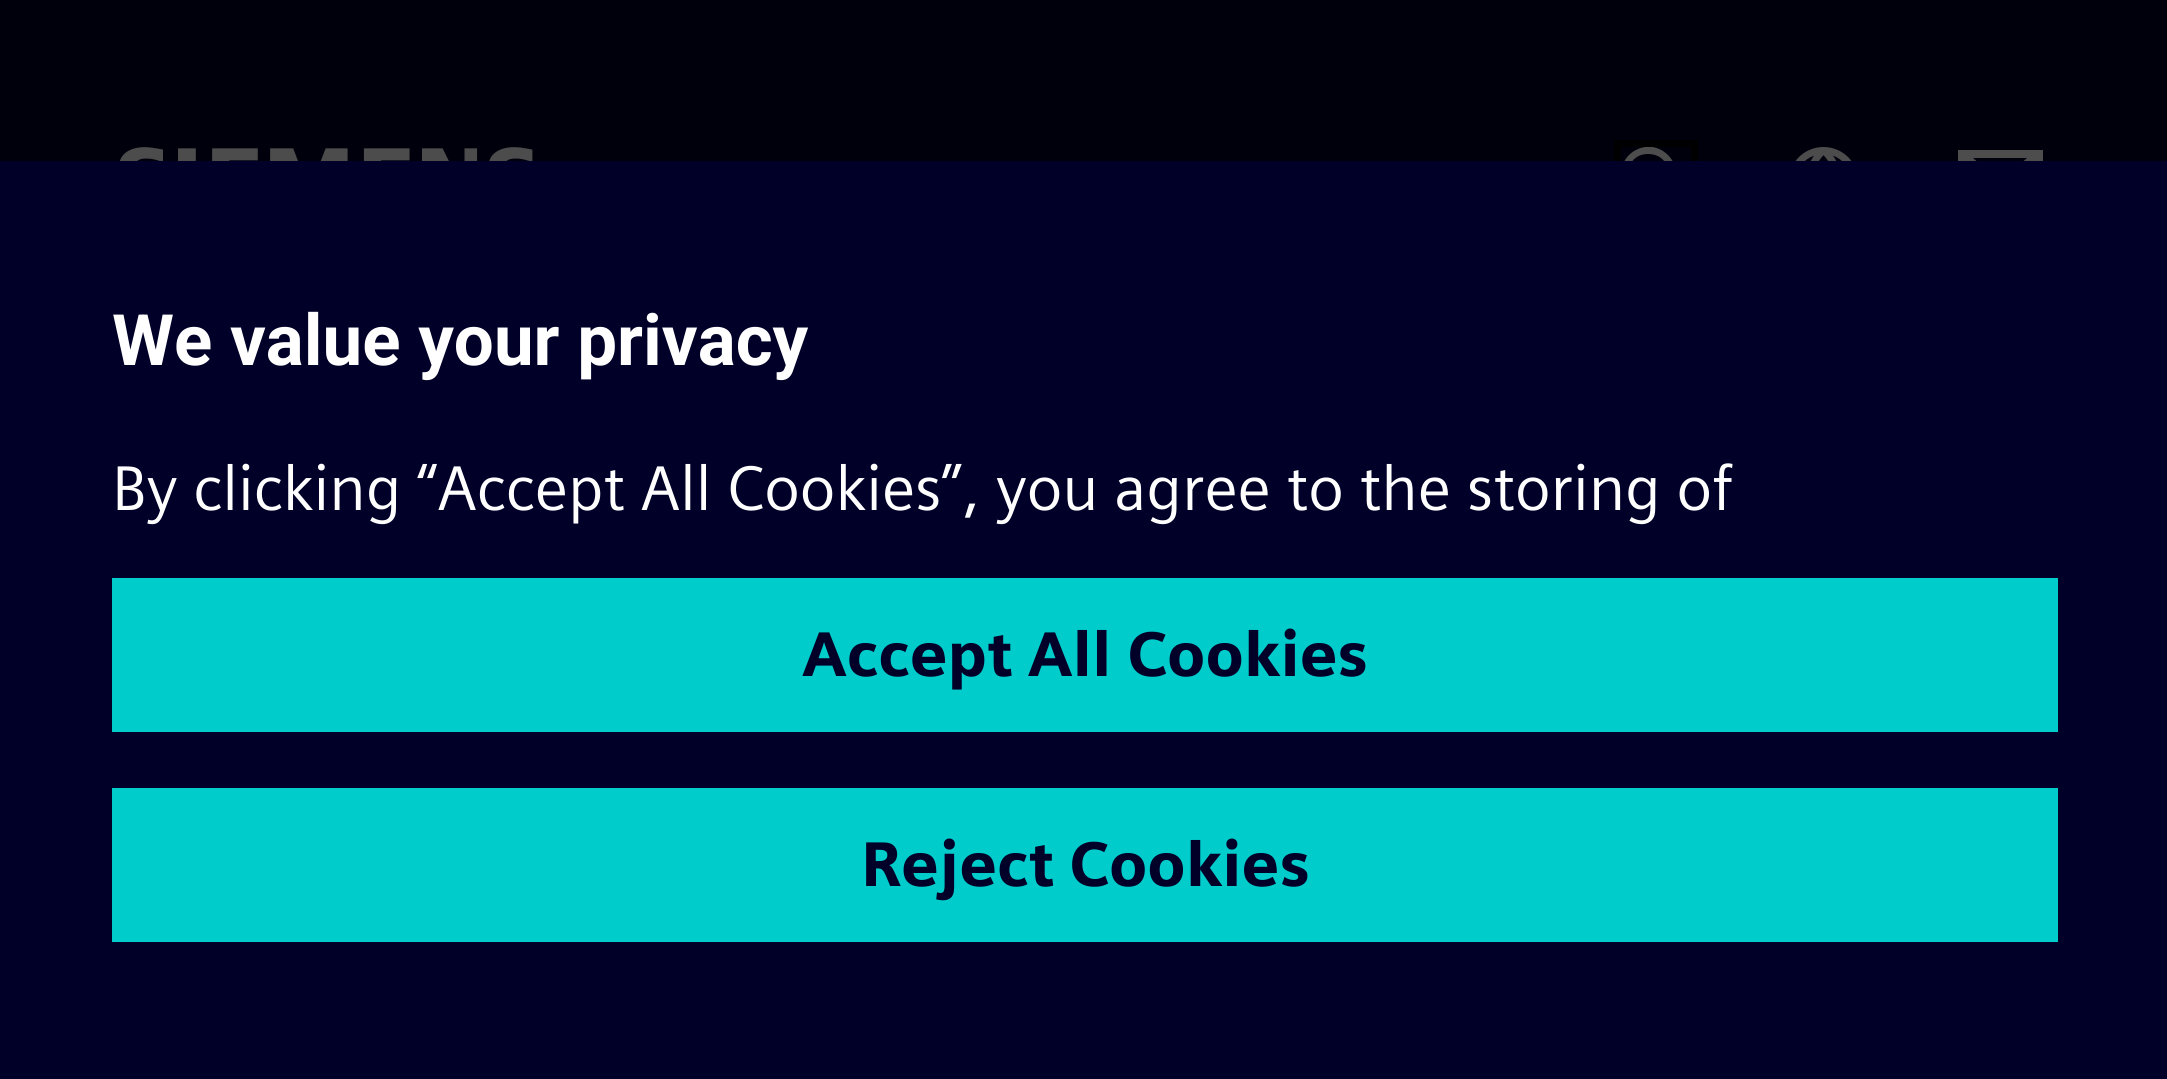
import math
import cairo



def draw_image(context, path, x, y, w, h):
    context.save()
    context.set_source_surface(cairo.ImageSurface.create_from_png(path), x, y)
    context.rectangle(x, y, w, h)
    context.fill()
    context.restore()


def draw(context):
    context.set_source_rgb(0, 0, 12 / 255)
    context.paint()
    draw_image(context, "images/1.png", 120, 147, 413, 14)
    context.set_source_rgb(77 / 255, 77 / 255, 77 / 255)
    context.set_fill_rule(cairo.FillRule.EVEN_ODD)
    context.new_path()
    context.move_to(1648, 196)
    context.curve_to(1621, 196, 1621, 154, 1648, 154)
    context.curve_to(1676, 154, 1676, 196, 1648, 196)
    context.close_path()
    context.move_to(1690, 212)
    context.line_to(1671, 192)
    context.curve_to(1688, 170, 1664, 138, 1638, 149)
    context.curve_to(1631, 152, 1626, 157, 1623, 164)
    context.curve_to(1619, 173, 1620, 183, 1625, 191)
    context.curve_to(1634, 204, 1653, 207, 1666, 197)
    context.line_to(1686, 217)
    context.close_path()
    context.fill()
    context.rectangle(1617.5, 143.5, 77, 77)
    context.set_source_rgb(0, 0, 0)
    context.set_line_width(7)
    context.stroke()
    draw_image(context, "images/2.png", 1795, 147, 57, 14)
    context.set_source_rgb(77 / 255, 77 / 255, 77 / 255)
    context.new_path()
    context.move_to(1958, 150)
    context.line_to(1958, 218)
    context.line_to(2043, 218)
    context.line_to(2043, 150)
    context.close_path()
    context.move_to(2027, 158)
    context.line_to(2000, 182)
    context.line_to(1973, 158)
    context.close_path()
    context.move_to(1966, 164)
    context.line_to(1966, 209)
    context.line_to(2034, 209)
    context.line_to(2034, 164)
    context.line_to(2000, 194)
    context.close_path()
    context.fill()
    context.set_source_rgb(0, 0, 40 / 255)
    context.rectangle(0, 161, 2167, 918)
    context.fill()
    context.set_source_rgb(0, 204 / 255, 204 / 255)
    context.rectangle(112, 578, 1946, 154)
    context.fill()
    context.rectangle(112, 788, 1946, 154)
    context.fill()
    context.select_font_face("Roboto", cairo.FontSlant.NORMAL, cairo.FontWeight.BOLD)
    context.set_font_size(70.9)
    context.set_source_rgb(1, 1, 1)
    context.move_to(112, 365)
    context.show_text("We value your privacy")
    context.select_font_face("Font")
    context.set_font_size(63)
    context.move_to(112, 510)
    context.show_text("By clicking “Accept All Cookies”, you agree to the storing of")
    context.select_font_face("Font", cairo.FontSlant.NORMAL, cairo.FontWeight.BOLD)
    context.set_source_rgb(0, 0, 40 / 255)
    context.move_to(802, 676)
    context.show_text("Accept All Cookies")
    context.move_to(861, 886)
    context.show_text("Reject Cookies")


surface = cairo.ImageSurface(cairo.Format.RGB24, 2167, 1079)
context = cairo.Context(surface)
options = cairo.FontOptions()
options.set_hint_metrics(cairo.HintMetrics.OFF)
options.set_hint_style(cairo.HintStyle.NONE)
context.set_font_options(options)
context.set_miter_limit(4)
draw(context)
surface.write_to_png("out.png")
